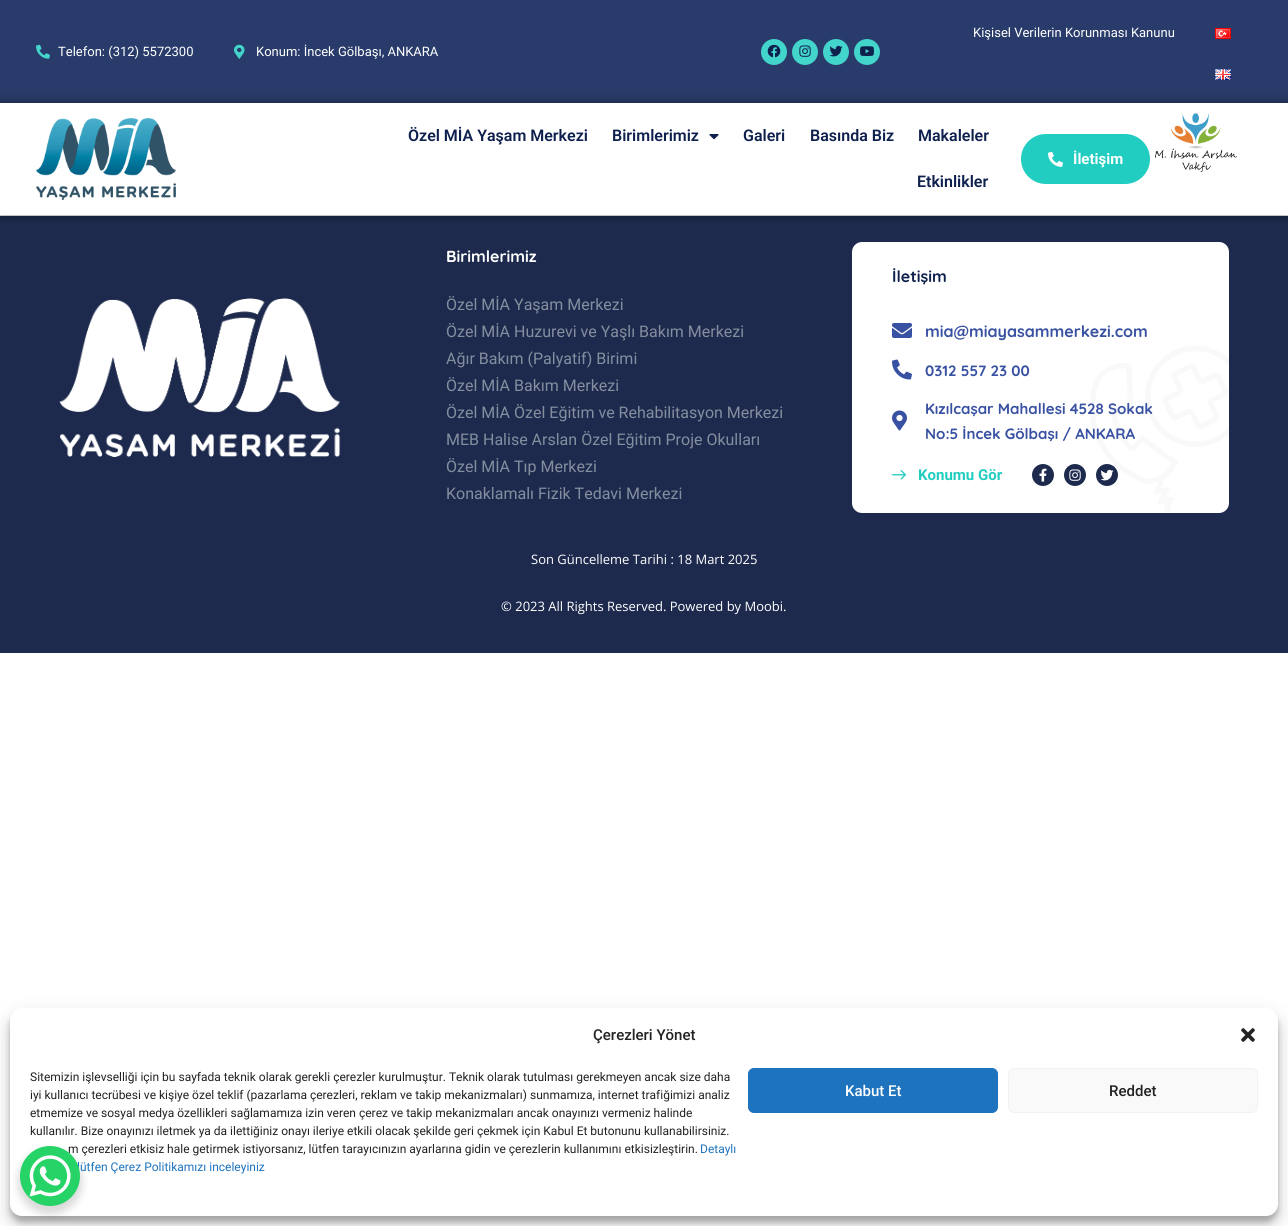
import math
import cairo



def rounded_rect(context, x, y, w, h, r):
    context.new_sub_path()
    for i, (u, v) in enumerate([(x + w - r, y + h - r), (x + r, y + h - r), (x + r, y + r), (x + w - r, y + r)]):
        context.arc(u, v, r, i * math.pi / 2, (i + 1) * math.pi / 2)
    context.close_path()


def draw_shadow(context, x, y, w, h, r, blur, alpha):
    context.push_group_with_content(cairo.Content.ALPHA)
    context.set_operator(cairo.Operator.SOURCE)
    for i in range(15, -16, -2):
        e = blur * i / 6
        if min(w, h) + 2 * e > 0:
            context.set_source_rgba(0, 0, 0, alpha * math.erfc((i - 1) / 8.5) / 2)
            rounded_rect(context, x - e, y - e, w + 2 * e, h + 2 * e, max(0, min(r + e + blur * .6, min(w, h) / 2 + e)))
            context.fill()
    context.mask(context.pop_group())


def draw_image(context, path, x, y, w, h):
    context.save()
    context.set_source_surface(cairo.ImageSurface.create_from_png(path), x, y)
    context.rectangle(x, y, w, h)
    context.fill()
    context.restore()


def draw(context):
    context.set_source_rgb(1, 1, 1)
    context.paint()
    context.set_source_rgb(40 / 255, 59 / 255, 106 / 255)
    context.rectangle(0, 0, 1288, 103)
    context.fill()
    draw_image(context, "images/1.png", 1215, 28, 16, 11)
    draw_image(context, "images/2.png", 1215, 69, 16, 11)
    draw_image(context, "images/3.png", 36, 44, 14, 15)
    draw_image(context, "images/4.png", 234, 44, 11, 15)
    context.set_source_rgb(67 / 255, 213 / 255, 203 / 255)
    context.arc(774, 52, 13, 0, 2 * math.pi)
    context.fill()
    draw_image(context, "images/5.png", 767, 44, 14, 14)
    context.arc(805, 52, 13, 0, 2 * math.pi)
    context.fill()
    draw_image(context, "images/6.png", 799, 45, 12, 12)
    context.arc(836, 52, 13, 0, 2 * math.pi)
    context.fill()
    draw_image(context, "images/7.png", 829, 45, 14, 12)
    context.arc(867, 52, 13, 0, 2 * math.pi)
    context.fill()
    draw_image(context, "images/8.png", 860, 46, 14, 10)
    context.set_source_rgb(29 / 255, 42 / 255, 77 / 255)
    context.rectangle(0, 216, 1288, 437)
    context.fill()
    context.save()
    context.set_fill_rule(cairo.FillRule.EVEN_ODD)
    context.new_path()
    context.move_to(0, 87)
    context.line_to(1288, 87)
    context.line_to(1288, 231)
    context.line_to(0, 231)
    context.close_path()
    context.move_to(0, 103)
    context.line_to(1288, 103)
    context.line_to(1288, 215)
    context.line_to(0, 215)
    context.close_path()
    context.clip()
    context.set_source_rgb(0, 0, 0)
    draw_shadow(context, 0, 103, 1288, 112, 0, 5, 0.5)
    context.restore()
    draw_image(context, "images/9.png", 36, 118, 140, 82)
    draw_image(context, "images/10.png", 709, 134, 10, 6)
    context.set_source_rgb(33 / 255, 205 / 255, 192 / 255)
    rounded_rect(context, 1022, 135, 127, 48, 24)
    context.fill_preserve()
    context.stroke()
    draw_image(context, "images/11.png", 1048, 151, 15, 16)
    draw_image(context, "images/12.png", 1155, 113, 82, 59)
    draw_image(context, "images/13.png", 59, 298, 282, 159)
    context.set_source_rgb(1, 1, 1)
    rounded_rect(context, 852, 242, 377, 271, 10)
    context.fill()
    draw_image(context, "images/14.png", 892, 323, 20, 15)
    draw_image(context, "images/15.png", 892, 359, 20, 21)
    draw_image(context, "images/16.png", 1090, 346, 139, 166)
    draw_image(context, "images/17.png", 892, 410, 15, 21)
    draw_image(context, "images/18.png", 892, 470, 14, 10)
    context.set_source_rgb(29 / 255, 42 / 255, 77 / 255)
    context.arc(1043, 475, 11, 0, 2 * math.pi)
    context.fill()
    draw_image(context, "images/19.png", 1039, 468, 8, 14)
    context.arc(1075, 475, 11, 0, 2 * math.pi)
    context.fill()
    draw_image(context, "images/20.png", 1069, 469, 12, 12)
    context.arc(1107, 475, 11, 0, 2 * math.pi)
    context.fill()
    draw_image(context, "images/21.png", 1100, 469, 14, 12)
    context.set_source_rgb(0, 0, 0)
    draw_shadow(context, 10, 1014, 1268, 208, 12, 3, 0.23)
    draw_shadow(context, 10, 1018, 1268, 208, 12, 10, 0.19)
    context.set_source_rgb(1, 1, 1)
    rounded_rect(context, 10, 1008, 1268, 208, 12)
    context.fill()
    draw_image(context, "images/22.png", 1241, 1028, 14, 14)
    context.set_source_rgb(30 / 255, 115 / 255, 190 / 255)
    rounded_rect(context, 748.5, 1068.5, 249, 44, 5.5)
    context.fill_preserve()
    context.set_line_width(1)
    context.stroke()
    context.set_source_rgb(249 / 255, 249 / 255, 249 / 255)
    rounded_rect(context, 1008.5, 1068.5, 249, 44, 5.5)
    context.fill_preserve()
    context.set_source_rgb(242 / 255, 242 / 255, 242 / 255)
    context.stroke()
    context.set_source_rgb(0, 0, 0)
    draw_shadow(context, 18, 1150, 64, 64, 32, 4, 0.15)
    context.select_font_face("Roboto")
    context.set_font_size(13)
    context.set_source_rgb(1, 1, 1)
    context.move_to(973, 37)
    context.show_text("Kişisel Verilerin Korunması Kanunu")
    context.move_to(58, 56)
    context.show_text("Telefon: (312) 5572300")
    context.move_to(256, 56)
    context.show_text("Konum: İncek Gölbaşı, ANKARA")
    context.select_font_face("Roboto SemiBold")
    context.set_font_size(16)
    context.set_source_rgb(14 / 255, 32 / 255, 77 / 255)
    context.move_to(408, 141)
    context.show_text("Özel MİA Yaşam Merkezi")
    context.move_to(612, 141)
    context.show_text("Birimlerimiz")
    context.move_to(743, 141)
    context.show_text("Galeri")
    context.move_to(810, 141)
    context.show_text("Basında Biz")
    context.move_to(918, 141)
    context.show_text("Makaleler")
    context.move_to(917, 187)
    context.show_text("Etkinlikler")
    context.select_font_face("Roboto", cairo.FontSlant.NORMAL, cairo.FontWeight.BOLD)
    context.set_font_size(15)
    context.set_source_rgb(1, 1, 1)
    context.move_to(1073, 164)
    context.show_text("İletişim")
    context.select_font_face("Quicksand", cairo.FontSlant.NORMAL, cairo.FontWeight.BOLD)
    context.set_font_size(16)
    context.move_to(446, 262)
    context.show_text("Birimlerimiz")
    context.select_font_face("Roboto")
    context.set_source_rgb(132 / 255, 142 / 255, 159 / 255)
    context.move_to(446, 310)
    context.show_text("Özel MİA Yaşam Merkezi")
    context.move_to(446, 337)
    context.show_text("Özel MİA Huzurevi ve Yaşlı Bakım Merkezi")
    context.move_to(446, 364)
    context.show_text("Ağır Bakım (Palyatif) Birimi")
    context.move_to(446, 391)
    context.show_text("Özel MİA Bakım Merkezi")
    context.move_to(446, 418)
    context.show_text("Özel MİA Özel Eğitim ve Rehabilitasyon Merkezi")
    context.move_to(446, 445)
    context.show_text("MEB Halise Arslan Özel Eğitim Proje Okulları")
    context.move_to(446, 472)
    context.show_text("Özel MİA Tıp Merkezi")
    context.move_to(446, 499)
    context.show_text("Konaklamalı Fizik Tedavi Merkezi")
    context.select_font_face("Quicksand", cairo.FontSlant.NORMAL, cairo.FontWeight.BOLD)
    context.set_source_rgb(14 / 255, 32 / 255, 77 / 255)
    context.move_to(892, 282)
    context.show_text("İletişim")
    context.set_source_rgb(56 / 255, 81 / 255, 162 / 255)
    context.move_to(925, 337)
    context.show_text("mia@miayasammerkezi.com")
    context.set_font_size(15)
    context.move_to(925, 376)
    context.show_text("0312 557 23 00")
    context.move_to(925, 414)
    context.show_text("Kızılcaşar Mahallesi 4528 Sokak")
    context.move_to(925, 439)
    context.show_text("No:5 İncek Gölbaşı / ANKARA")
    context.select_font_face("Roboto", cairo.FontSlant.NORMAL, cairo.FontWeight.BOLD)
    context.set_source_rgb(33 / 255, 205 / 255, 192 / 255)
    context.move_to(918, 480)
    context.show_text("Konumu Gör")
    context.select_font_face("Open Sans")
    context.set_font_size(13)
    context.set_source_rgb(1, 1, 1)
    context.move_to(531, 564)
    context.show_text("Son Güncelleme Tarihi : 18 Mart 2025")
    context.move_to(501, 611)
    context.show_text("© 2023 All Rights Reserved. Powered by Moobi.")
    context.select_font_face("Roboto Medium")
    context.set_font_size(15)
    context.set_source_rgb(34 / 255, 34 / 255, 34 / 255)
    context.move_to(593, 1040)
    context.show_text("Çerezleri Yönet")
    context.select_font_face("Roboto")
    context.set_font_size(12)
    context.move_to(30, 1081)
    context.show_text("Sitemizin işlevselliği için bu sayfada teknik olarak gerekli çerezler kurulmuştur. Teknik olarak tutulması gerekmeyen ancak size daha")
    context.move_to(30, 1099)
    context.show_text("iyi kullanıcı tecrübesi ve kişiye özel teklif (pazarlama çerezleri, reklam ve takip mekanizmaları) sunmamıza, internet trafiğimizi analiz")
    context.move_to(30, 1117)
    context.show_text("etmemize ve sosyal medya özellikleri sağlamamıza izin veren çerez ve takip mekanizmaları ancak onayınızı vermeniz halinde")
    context.move_to(30, 1135)
    context.show_text("kullanılır. Bize onayınızı iletmek ya da ilettiğiniz onayı ileriye etkili olacak şekilde geri çekmek için Kabul Et butonunu kullanabilirsiniz.")
    context.move_to(68, 1153)
    context.show_text("m çerezleri etkisiz hale getirmek istiyorsanız, lütfen tarayıcınızın ayarlarına gidin ve çerezlerin kullanımını etkisizleştirin.")
    context.set_source_rgb(30 / 255, 115 / 255, 190 / 255)
    context.move_to(700, 1153)
    context.show_text("Detaylı")
    context.move_to(77, 1171)
    context.show_text("lütfen Çerez Politikamızı inceleyiniz")
    context.select_font_face("Roboto Medium")
    context.set_font_size(15)
    context.set_source_rgb(1, 1, 1)
    context.move_to(845, 1096)
    context.show_text("Kabut Et")
    context.set_source_rgb(34 / 255, 34 / 255, 34 / 255)
    context.move_to(1109, 1096)
    context.show_text("Reddet")
    context.set_source_rgb(37 / 255, 211 / 255, 102 / 255)
    context.new_path()
    context.arc(50, 1176, 30, 0, 2 * math.pi)
    context.fill()
    draw_image(context, "images/23.png", 29, 1155, 42, 42)


surface = cairo.ImageSurface(cairo.Format.RGB24, 1288, 1226)
context = cairo.Context(surface)
options = cairo.FontOptions()
options.set_hint_metrics(cairo.HintMetrics.OFF)
options.set_hint_style(cairo.HintStyle.NONE)
context.set_font_options(options)
context.set_miter_limit(4)
draw(context)
surface.write_to_png("out.png")
